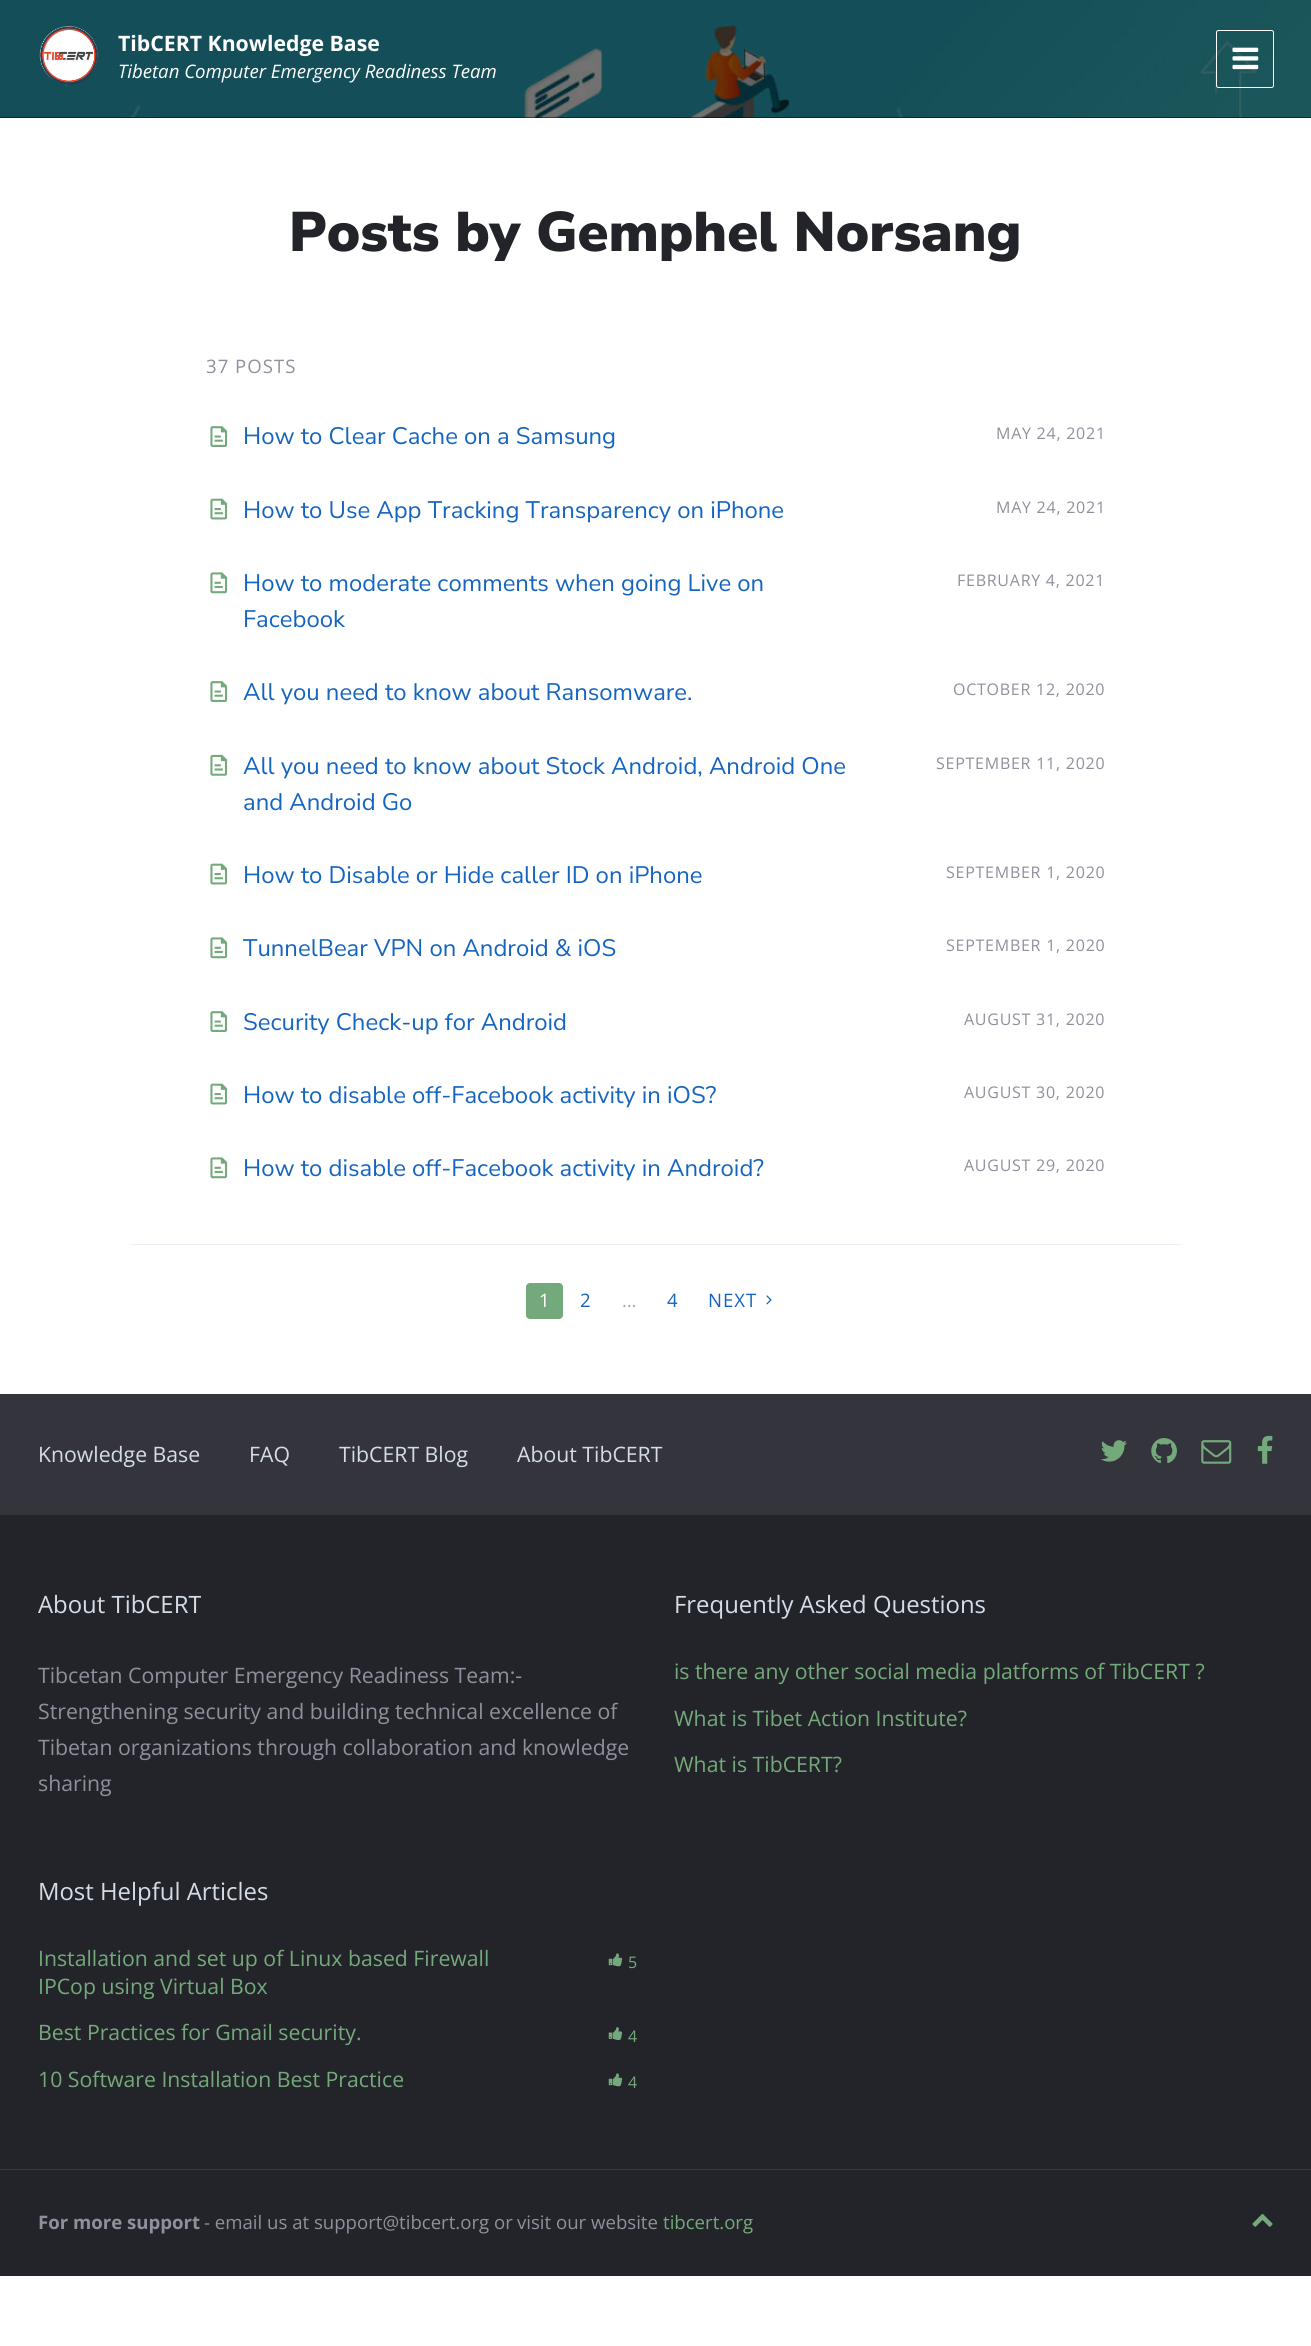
import math
import cairo



def draw_spaced(context, x, y, s, letter, word):
    context.move_to(x, y)
    for ch in s:
        context.show_text(ch)
        context.rel_move_to(letter + word * (ch == ' '), 0)


def rounded_rect(context, x, y, w, h, r):
    context.new_sub_path()
    for i, (u, v) in enumerate([(x + w - r, y + h - r), (x + r, y + h - r), (x + r, y + r), (x + w - r, y + r)]):
        context.arc(u, v, r, i * math.pi / 2, (i + 1) * math.pi / 2)
    context.close_path()


def draw_image(context, path, x, y, w, h):
    context.save()
    context.set_source_surface(cairo.ImageSurface.create_from_png(path), x, y)
    context.rectangle(x, y, w, h)
    context.fill()
    context.restore()


def draw(context):
    context.set_source_rgb(1, 1, 1)
    context.paint()
    context.set_source_rgb(0, 0, 0)
    context.rectangle(0, 117, 1311, 1)
    context.fill()
    draw_image(context, "images/1.png", 0, 0, 1311, 118)
    draw_image(context, "images/2.png", 39, 26, 59, 59)
    rounded_rect(context, 1216.5, 30.5, 57, 57, 2)
    context.set_source_rgb(1, 1, 1)
    context.set_line_width(1)
    context.stroke()
    draw_image(context, "images/3.png", 1232, 47, 27, 23)
    draw_image(context, "images/4.png", 210, 426, 18, 21)
    draw_image(context, "images/5.png", 210, 498, 18, 22)
    draw_image(context, "images/6.png", 210, 572, 18, 22)
    draw_image(context, "images/4.png", 210, 681, 18, 21)
    draw_image(context, "images/7.png", 210, 754, 18, 22)
    draw_image(context, "images/5.png", 210, 863, 18, 22)
    draw_image(context, "images/6.png", 210, 937, 18, 22)
    draw_image(context, "images/4.png", 210, 1011, 18, 21)
    draw_image(context, "images/5.png", 210, 1083, 18, 22)
    draw_image(context, "images/6.png", 210, 1157, 18, 22)
    context.set_source_rgb(234 / 255, 237 / 255, 243 / 255)
    context.rectangle(131, 1244, 1050, 1)
    context.fill()
    context.set_source_rgb(116 / 255, 170 / 255, 123 / 255)
    rounded_rect(context, 526, 1283, 37, 36, 4)
    context.fill()
    draw_image(context, "images/8.png", 766, 1295, 6, 10)
    context.set_source_rgb(35 / 255, 36 / 255, 41 / 255)
    context.rectangle(0, 1515, 1311, 761)
    context.fill()
    context.set_source_rgb(52 / 255, 53 / 255, 60 / 255)
    context.rectangle(0, 1394, 1311, 121)
    context.fill()
    draw_image(context, "images/9.png", 1101, 1440, 26, 22)
    draw_image(context, "images/10.png", 1151, 1438, 26, 26)
    draw_image(context, "images/11.png", 1201, 1440, 31, 24)
    draw_image(context, "images/12.png", 1257, 1435, 16, 29)
    draw_image(context, "images/13.png", 608, 1953, 15, 14)
    draw_image(context, "images/14.png", 608, 2027, 15, 13)
    draw_image(context, "images/13.png", 608, 2073, 15, 14)
    context.set_source_rgb(57 / 255, 58 / 255, 62 / 255)
    context.rectangle(0, 2169, 1311, 1)
    context.fill()
    draw_image(context, "images/15.png", 1252, 2214, 21, 13)
    context.select_font_face("Open Sans", cairo.FontSlant.NORMAL, cairo.FontWeight.BOLD)
    context.set_font_size(21.25)
    context.set_source_rgb(1, 1, 1)
    context.move_to(118, 51)
    context.show_text("TibCERT Knowledge Base")
    context.select_font_face("Open Sans", cairo.FontSlant.ITALIC)
    context.set_font_size(18.6)
    context.move_to(118, 78)
    context.show_text("Tibetan Computer Emergency Readiness Team")
    context.select_font_face("Nunito Sans Black")
    context.set_font_size(55.75)
    context.set_source_rgb(35 / 255, 36 / 255, 41 / 255)
    context.move_to(289, 251)
    context.show_text("Posts by Gemphel Norsang")
    context.select_font_face("Open Sans")
    context.set_font_size(18.6)
    context.set_source_rgb(142 / 255, 144 / 255, 157 / 255)
    draw_spaced(context, 206, 373, "37 POSTS", 1, 0)
    context.select_font_face("Nunito Sans")
    context.set_font_size(23.9)
    context.set_source_rgb(21 / 255, 101 / 255, 192 / 255)
    context.move_to(243, 444)
    context.show_text("How to Clear Cache on a Samsung")
    context.select_font_face("Open Sans")
    context.set_font_size(16)
    context.set_source_rgb(142 / 255, 144 / 255, 157 / 255)
    draw_spaced(context, 996, 439, "MAY 24, 2021", 0.75, 0)
    context.select_font_face("Nunito Sans")
    context.set_font_size(23.9)
    context.set_source_rgb(21 / 255, 101 / 255, 192 / 255)
    context.move_to(243, 518)
    context.show_text("How to Use App Tracking Transparency on iPhone")
    context.select_font_face("Open Sans")
    context.set_font_size(16)
    context.set_source_rgb(142 / 255, 144 / 255, 157 / 255)
    draw_spaced(context, 996, 513, "MAY 24, 2021", 0.75, 0)
    context.select_font_face("Nunito Sans")
    context.set_font_size(23.9)
    context.set_source_rgb(21 / 255, 101 / 255, 192 / 255)
    context.move_to(243, 591)
    context.show_text("How to moderate comments when going Live on")
    context.move_to(243, 627)
    context.show_text("Facebook")
    context.select_font_face("Open Sans")
    context.set_font_size(16)
    context.set_source_rgb(142 / 255, 144 / 255, 157 / 255)
    draw_spaced(context, 957, 586, "FEBRUARY 4, 2021", 0.75, 0)
    context.select_font_face("Nunito Sans")
    context.set_font_size(23.9)
    context.set_source_rgb(21 / 255, 101 / 255, 192 / 255)
    context.move_to(243, 700)
    context.show_text("All you need to know about Ransomware.")
    context.select_font_face("Open Sans")
    context.set_font_size(16)
    context.set_source_rgb(142 / 255, 144 / 255, 157 / 255)
    draw_spaced(context, 953, 695, "OCTOBER 12, 2020", 0.75, 0)
    context.select_font_face("Nunito Sans")
    context.set_font_size(23.9)
    context.set_source_rgb(21 / 255, 101 / 255, 192 / 255)
    context.move_to(243, 774)
    context.show_text("All you need to know about Stock Android, Android One")
    context.move_to(243, 810)
    context.show_text("and Android Go")
    context.select_font_face("Open Sans")
    context.set_font_size(16)
    context.set_source_rgb(142 / 255, 144 / 255, 157 / 255)
    draw_spaced(context, 936, 769, "SEPTEMBER 11, 2020", 0.75, 0)
    context.select_font_face("Nunito Sans")
    context.set_font_size(23.9)
    context.set_source_rgb(21 / 255, 101 / 255, 192 / 255)
    context.move_to(243, 883)
    context.show_text("How to Disable or Hide caller ID on iPhone")
    context.select_font_face("Open Sans")
    context.set_font_size(16)
    context.set_source_rgb(142 / 255, 144 / 255, 157 / 255)
    draw_spaced(context, 946, 878, "SEPTEMBER 1, 2020", 0.75, 0)
    context.select_font_face("Nunito Sans")
    context.set_font_size(23.9)
    context.set_source_rgb(21 / 255, 101 / 255, 192 / 255)
    context.move_to(243, 956)
    context.show_text("TunnelBear VPN on Android & iOS")
    context.select_font_face("Open Sans")
    context.set_font_size(16)
    context.set_source_rgb(142 / 255, 144 / 255, 157 / 255)
    draw_spaced(context, 946, 951, "SEPTEMBER 1, 2020", 0.75, 0)
    context.select_font_face("Nunito Sans")
    context.set_font_size(23.9)
    context.set_source_rgb(21 / 255, 101 / 255, 192 / 255)
    context.move_to(243, 1030)
    context.show_text("Security Check-up for Android")
    context.select_font_face("Open Sans")
    context.set_font_size(16)
    context.set_source_rgb(142 / 255, 144 / 255, 157 / 255)
    draw_spaced(context, 964, 1025, "AUGUST 31, 2020", 0.75, 0)
    context.select_font_face("Nunito Sans")
    context.set_font_size(23.9)
    context.set_source_rgb(21 / 255, 101 / 255, 192 / 255)
    context.move_to(243, 1103)
    context.show_text("How to disable off-Facebook activity in iOS?")
    context.select_font_face("Open Sans")
    context.set_font_size(16)
    context.set_source_rgb(142 / 255, 144 / 255, 157 / 255)
    draw_spaced(context, 964, 1098, "AUGUST 30, 2020", 0.75, 0)
    context.select_font_face("Nunito Sans")
    context.set_font_size(23.9)
    context.set_source_rgb(21 / 255, 101 / 255, 192 / 255)
    context.move_to(243, 1176)
    context.show_text("How to disable off-Facebook activity in Android?")
    context.select_font_face("Open Sans")
    context.set_font_size(16)
    context.set_source_rgb(142 / 255, 144 / 255, 157 / 255)
    draw_spaced(context, 964, 1171, "AUGUST 29, 2020", 0.75, 0)
    context.set_font_size(18.6)
    context.set_source_rgb(1, 1, 1)
    draw_spaced(context, 539, 1307, "1", 1, 0)
    context.set_source_rgb(21 / 255, 101 / 255, 192 / 255)
    draw_spaced(context, 580, 1307, "2", 1, 0)
    context.set_source_rgb(166 / 255, 169 / 255, 183 / 255)
    draw_spaced(context, 622, 1307, "…", 1, 0)
    context.set_source_rgb(21 / 255, 101 / 255, 192 / 255)
    draw_spaced(context, 667, 1307, "4", 1, 0)
    draw_spaced(context, 708, 1307, "NEXT", 1, 0)
    context.set_font_size(21.25)
    context.set_source_rgb(212 / 255, 220 / 255, 232 / 255)
    context.move_to(38, 1462)
    context.show_text("Knowledge Base")
    context.move_to(249, 1462)
    context.show_text("FAQ")
    context.move_to(339, 1462)
    context.show_text("TibCERT Blog")
    context.move_to(517, 1462)
    context.show_text("About TibCERT")
    context.set_font_size(23.9)
    context.move_to(38, 1613)
    context.show_text("About TibCERT")
    context.set_font_size(21.25)
    context.set_source_rgb(142 / 255, 144 / 255, 157 / 255)
    context.move_to(38, 1683)
    context.show_text("Tibcetan Computer Emergency Readiness Team:-")
    context.move_to(38, 1719)
    context.show_text("Strengthening security and building technical excellence of")
    context.move_to(38, 1755)
    context.show_text("Tibetan organizations through collaboration and knowledge")
    context.move_to(38, 1791)
    context.show_text("sharing")
    context.set_font_size(23.9)
    context.set_source_rgb(212 / 255, 220 / 255, 232 / 255)
    context.move_to(674, 1613)
    context.show_text("Frequently Asked Questions")
    context.set_font_size(21.25)
    context.set_source_rgb(116 / 255, 170 / 255, 123 / 255)
    context.move_to(674, 1679)
    context.show_text("is there any other social media platforms of TibCERT ?")
    context.move_to(674, 1726)
    context.show_text("What is Tibet Action Institute?")
    context.move_to(674, 1772)
    context.show_text("What is TibCERT?")
    context.set_font_size(23.9)
    context.set_source_rgb(212 / 255, 220 / 255, 232 / 255)
    context.move_to(38, 1900)
    context.show_text("Most Helpful Articles")
    context.set_font_size(21.25)
    context.set_source_rgb(116 / 255, 170 / 255, 123 / 255)
    context.move_to(38, 1966)
    context.show_text("Installation and set up of Linux based Firewall")
    context.move_to(38, 1994)
    context.show_text("IPCop using Virtual Box")
    context.set_font_size(16)
    context.move_to(628, 1968)
    context.show_text("5")
    context.set_font_size(21.25)
    context.move_to(38, 2040)
    context.show_text("Best Practices for Gmail security.")
    context.set_font_size(16)
    context.move_to(628, 2042)
    context.show_text("4")
    context.set_font_size(21.25)
    context.move_to(38, 2087)
    context.show_text("10 Software Installation Best Practice")
    context.set_font_size(16)
    context.move_to(628, 2088)
    context.show_text("4")
    context.select_font_face("Open Sans", cairo.FontSlant.NORMAL, cairo.FontWeight.BOLD)
    context.set_font_size(18.6)
    context.set_source_rgb(142 / 255, 144 / 255, 157 / 255)
    context.move_to(38, 2229)
    context.show_text("For more support")
    context.select_font_face("Open Sans")
    context.move_to(204, 2229)
    context.show_text("- email us at support@tibcert.org or")
    context.move_to(517, 2229)
    context.show_text("visit our website")
    context.set_source_rgb(116 / 255, 170 / 255, 123 / 255)
    context.move_to(663, 2229)
    context.show_text("tibcert.org")


surface = cairo.ImageSurface(cairo.Format.RGB24, 1311, 2346)
context = cairo.Context(surface)
options = cairo.FontOptions()
options.set_hint_metrics(cairo.HintMetrics.OFF)
options.set_hint_style(cairo.HintStyle.NONE)
context.set_font_options(options)
context.set_miter_limit(4)
draw(context)
surface.write_to_png("out.png")
